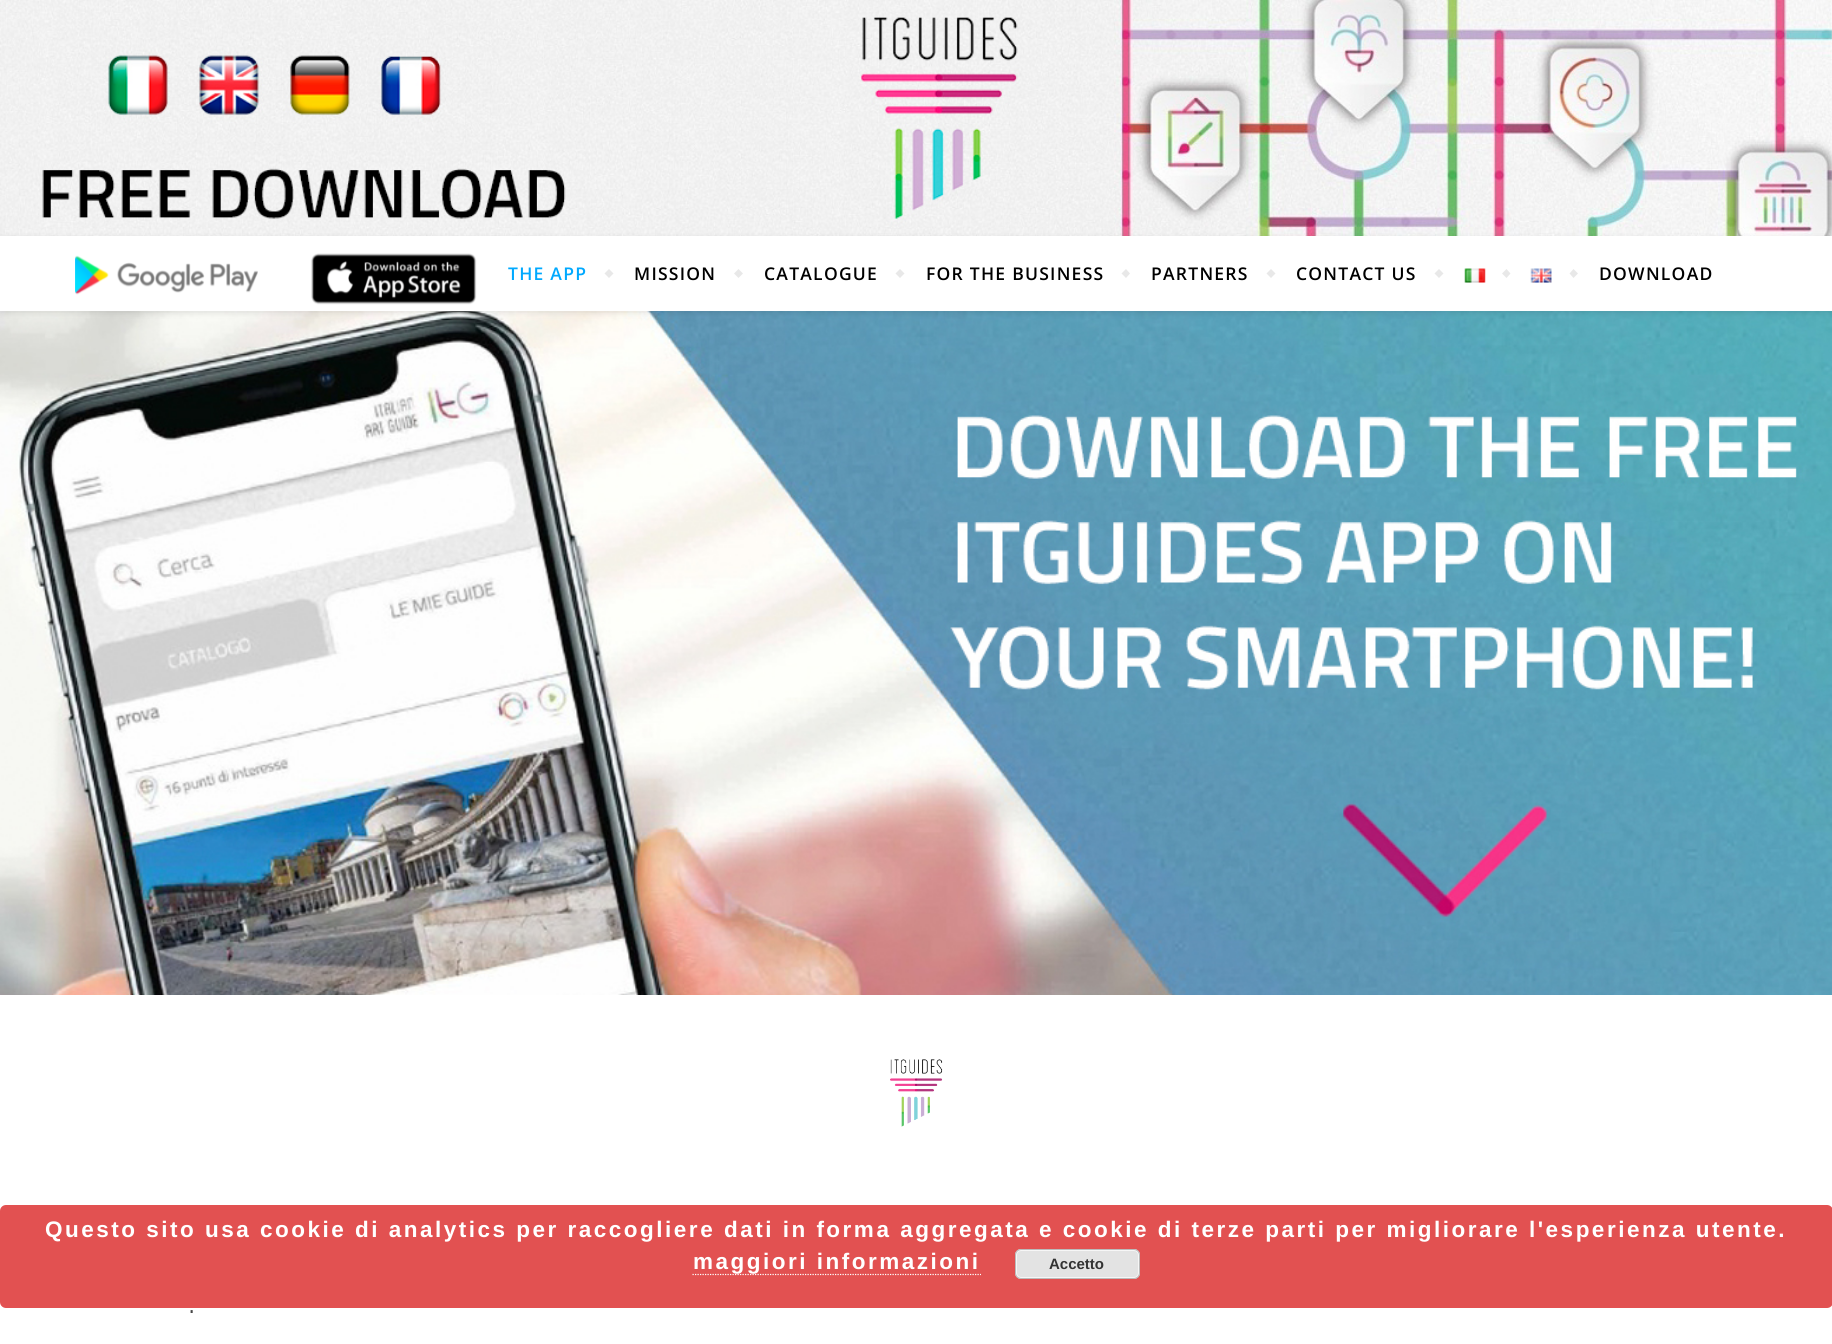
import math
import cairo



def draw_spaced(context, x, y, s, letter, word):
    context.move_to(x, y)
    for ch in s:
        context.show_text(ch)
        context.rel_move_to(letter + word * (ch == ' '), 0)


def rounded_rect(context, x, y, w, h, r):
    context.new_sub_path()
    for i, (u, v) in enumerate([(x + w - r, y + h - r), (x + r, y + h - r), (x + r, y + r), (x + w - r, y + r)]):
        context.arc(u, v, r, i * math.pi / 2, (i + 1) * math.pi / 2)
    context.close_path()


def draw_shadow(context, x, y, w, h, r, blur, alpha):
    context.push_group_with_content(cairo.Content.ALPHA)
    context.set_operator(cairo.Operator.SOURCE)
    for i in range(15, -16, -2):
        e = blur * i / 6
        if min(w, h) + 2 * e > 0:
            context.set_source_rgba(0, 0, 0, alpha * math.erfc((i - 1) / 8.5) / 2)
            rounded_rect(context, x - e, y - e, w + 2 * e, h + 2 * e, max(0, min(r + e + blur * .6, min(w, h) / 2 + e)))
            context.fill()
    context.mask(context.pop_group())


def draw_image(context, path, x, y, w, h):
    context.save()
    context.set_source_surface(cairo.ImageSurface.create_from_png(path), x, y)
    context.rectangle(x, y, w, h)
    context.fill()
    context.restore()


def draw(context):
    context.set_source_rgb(1, 1, 1)
    context.paint()
    draw_image(context, "images/1.png", 0, 0, 42, 236)
    draw_image(context, "images/2.png", 42, 0, 1790, 236)
    draw_image(context, "images/7.png", 0, 311, 1832, 684)
    context.set_source_rgb(0, 0, 0)
    draw_shadow(context, 0, 238, 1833, 75, 0, 3, 0.1)
    context.set_source_rgb(1, 1, 1)
    context.rectangle(0, 236, 1832, 75)
    context.fill()
    draw_image(context, "images/3.png", 75, 255, 183, 40)
    draw_image(context, "images/4.png", 311, 253, 166, 52)
    context.set_source_rgb(232 / 255, 232 / 255, 232 / 255)
    context.new_path()
    context.move_to(604.5, 273.5)
    context.line_to(609, 269)
    context.line_to(613.5, 273.5)
    context.line_to(609, 278)
    context.close_path()
    context.fill()
    context.new_path()
    context.move_to(734, 273.5)
    context.line_to(738.5, 269)
    context.line_to(743, 273.5)
    context.line_to(738.5, 278)
    context.close_path()
    context.fill()
    context.new_path()
    context.move_to(895.5, 273.5)
    context.line_to(900, 269)
    context.line_to(904.5, 273.5)
    context.line_to(900, 278)
    context.close_path()
    context.fill()
    context.new_path()
    context.move_to(1121.5, 273.5)
    context.line_to(1126, 269)
    context.line_to(1130, 273.5)
    context.line_to(1126, 278)
    context.close_path()
    context.fill()
    context.new_path()
    context.move_to(1266.5, 273.5)
    context.line_to(1271, 269)
    context.line_to(1275.5, 273.5)
    context.line_to(1271, 278)
    context.close_path()
    context.fill()
    context.new_path()
    context.move_to(1434.5, 273.5)
    context.line_to(1439, 269)
    context.line_to(1443.5, 273.5)
    context.line_to(1439, 278)
    context.close_path()
    context.fill()
    draw_image(context, "images/5.png", 1464, 268, 22, 15)
    context.new_path()
    context.move_to(1502, 273.5)
    context.line_to(1506.5, 269)
    context.line_to(1510.5, 273.5)
    context.line_to(1506.5, 278)
    context.close_path()
    context.fill()
    draw_image(context, "images/6.png", 1530, 268, 22, 15)
    context.new_path()
    context.move_to(1569.5, 273.5)
    context.line_to(1573.5, 269)
    context.line_to(1578, 273.5)
    context.line_to(1573.5, 278)
    context.close_path()
    context.fill()
    draw_image(context, "images/8.png", 890, 1059, 53, 68)
    context.set_source_rgba(221 / 255, 51 / 255, 51 / 255, 0.85)
    rounded_rect(context, 0, 1205, 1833, 103, 6)
    context.fill()
    context.new_path()
    context.move_to(692.5, 1274.5)
    context.line_to(981, 1274.5)
    context.set_source_rgb(1, 1, 1)
    context.set_line_width(1.2)
    context.set_dash([1.25, 1.25])
    context.stroke()
    context.set_source_rgb(227 / 255, 227 / 255, 227 / 255)
    rounded_rect(context, 1015, 1249, 125, 30, 6)
    context.fill()
    rounded_rect(context, 1016.5, 1250.5, 122, 27, 4.5)
    context.set_source_rgb(246 / 255, 246 / 255, 246 / 255)
    context.set_line_width(1)
    context.set_dash([])
    context.stroke()
    rounded_rect(context, 1015.5, 1249.5, 124, 29, 5.5)
    context.set_source_rgb(187 / 255, 187 / 255, 187 / 255)
    context.stroke()
    context.select_font_face("Open Sans SemiBold")
    context.set_font_size(17.5)
    context.set_source_rgb(0, 169 / 255, 1)
    draw_spaced(context, 508, 280, "THE APP", 1.25, 0)
    context.set_source_rgb(0, 0, 0)
    draw_spaced(context, 634, 280, "MISSION", 1.25, 0)
    draw_spaced(context, 764, 280, "CATALOGUE", 1.25, 0)
    draw_spaced(context, 926, 280, "FOR THE BUSINESS", 1.25, 0)
    draw_spaced(context, 1151, 280, "PARTNERS", 1.25, 0)
    draw_spaced(context, 1296, 280, "CONTACT US", 1.25, 0)
    draw_spaced(context, 1599, 280, "DOWNLOAD", 1.25, 0)
    context.select_font_face("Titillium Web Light", cairo.FontSlant.NORMAL, cairo.FontWeight.BOLD)
    context.set_font_size(22.5)
    context.set_source_rgb(70 / 255, 70 / 255, 70 / 255)
    draw_spaced(context, 189, 1313, ".", 2.5, 0)
    context.select_font_face("Liberation Sans", cairo.FontSlant.NORMAL, cairo.FontWeight.BOLD)
    context.set_source_rgb(1, 1, 1)
    draw_spaced(context, 45, 1237, "Questo sito usa cookie di analytics per raccogliere dati in forma aggregata e cookie di terze parti per migliorare l'esperienza utente.", 2.5, 0)
    draw_spaced(context, 693, 1269, "maggiori informazioni", 2.5, 0)
    context.set_font_size(15)
    context.set_source_rgb(51 / 255, 51 / 255, 51 / 255)
    context.move_to(1049, 1269)
    context.show_text("Accetto")


surface = cairo.ImageSurface(cairo.Format.RGB24, 1832, 1344)
context = cairo.Context(surface)
options = cairo.FontOptions()
options.set_hint_metrics(cairo.HintMetrics.OFF)
options.set_hint_style(cairo.HintStyle.NONE)
context.set_font_options(options)
context.set_miter_limit(4)
draw(context)
surface.write_to_png("out.png")
